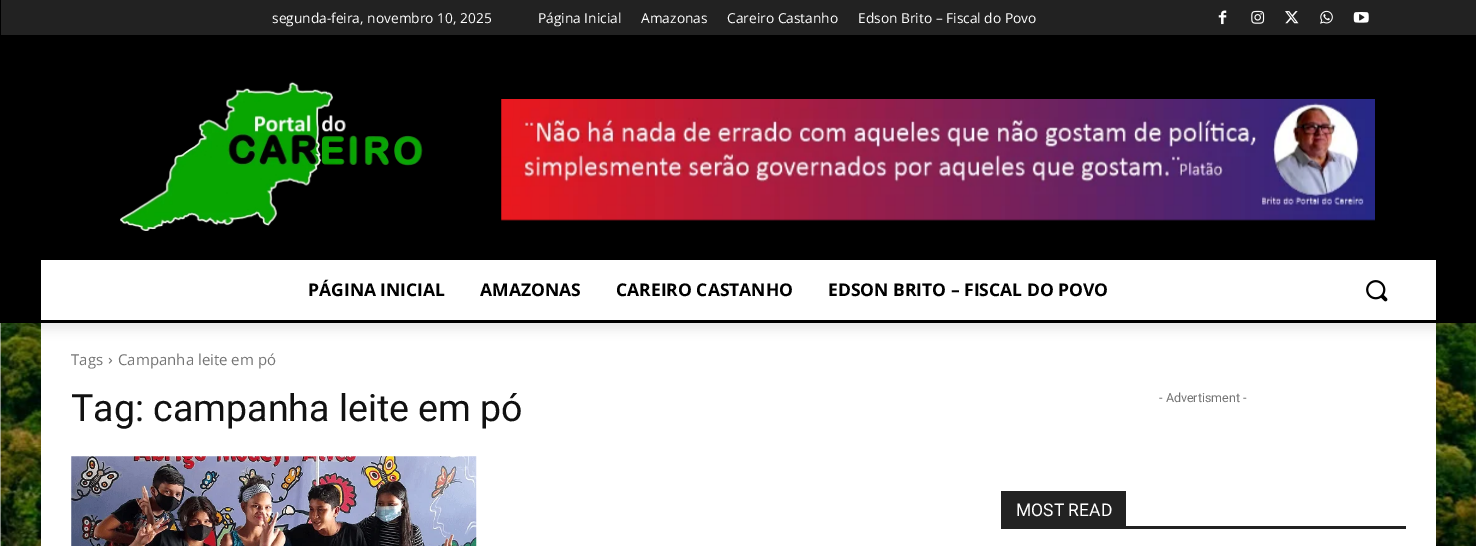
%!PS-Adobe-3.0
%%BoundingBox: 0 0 1476 546
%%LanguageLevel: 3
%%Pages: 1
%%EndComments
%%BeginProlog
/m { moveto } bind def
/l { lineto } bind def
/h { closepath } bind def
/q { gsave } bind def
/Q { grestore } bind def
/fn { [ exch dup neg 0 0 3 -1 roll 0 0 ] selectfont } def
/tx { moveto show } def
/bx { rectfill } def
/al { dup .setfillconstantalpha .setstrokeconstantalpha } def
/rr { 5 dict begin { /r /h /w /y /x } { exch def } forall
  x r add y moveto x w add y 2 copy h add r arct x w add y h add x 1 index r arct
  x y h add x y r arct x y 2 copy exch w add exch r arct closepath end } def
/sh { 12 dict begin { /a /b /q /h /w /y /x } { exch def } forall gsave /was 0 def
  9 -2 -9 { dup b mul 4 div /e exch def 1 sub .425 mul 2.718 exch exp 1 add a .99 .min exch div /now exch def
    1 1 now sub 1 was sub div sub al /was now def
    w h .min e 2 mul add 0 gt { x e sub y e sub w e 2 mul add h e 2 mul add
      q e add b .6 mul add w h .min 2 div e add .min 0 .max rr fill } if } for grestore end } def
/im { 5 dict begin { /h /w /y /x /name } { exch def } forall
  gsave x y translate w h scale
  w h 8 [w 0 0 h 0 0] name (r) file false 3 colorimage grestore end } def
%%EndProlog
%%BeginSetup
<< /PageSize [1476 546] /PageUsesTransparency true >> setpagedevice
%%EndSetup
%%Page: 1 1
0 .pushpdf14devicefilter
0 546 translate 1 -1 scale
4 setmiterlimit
1 setgray
0 0 1476 546 bx
0 setgray
0 0 1476 323 bx
0.133 setgray
1 0 1475 35 bx
(image0.raw) 1218 10 9 15 im
(image1.raw) 1251 10 14 14 im
(image2.raw) 1285 11 14 13 im
(image3.raw) 1320 10 13 14 im
(image4.raw) 1353 12 16 11 im
(image5.raw) 120 81 303 150 im
(image6.raw) 501 99 874 122 im
1 setgray
41 260 1395 60 bx
(image10.raw) 0 323 1476 223 im
41 323 1395 223 bx
q
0 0 m 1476 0 l 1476 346 l 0 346 l h 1 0 m 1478 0 l 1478 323 l 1 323 l h eoclip newpath
0 setgray
1 8 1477 322 0 5 0.08 sh
Q
/OpenSans-Regular 13.75 fn
(segunda-feira, novembro 10, 2025) 272 23 tx
(Página Inicial) 538 23 tx
(Amazonas) 641 23 tx
(Careiro Castanho) 727 23 tx
(Edson Brito – Fiscal do Povo) 858 23 tx
/OpenSans-Bold 17.5 fn
0 setgray
(PÁGINA INICIAL) 308 296 tx
(AMAZONAS) 480 296 tx
(CAREIRO CASTANHO) 616 296 tx
(EDSON BRITO – FISCAL DO POVO) 828 296 tx
(image7.raw) 1366 280 22 22 im
/OpenSans-Regular 15 fn
0.455 setgray
(Tags) 71 365 tx
(image8.raw) 108 357 5 7 im
(Campanha leite em pó) 118 365 tx
/Roboto-Regular 37.5 fn
0.067 setgray
(Tag: campanha leite em pó) 71 421 tx
(image9.raw) 71 456 406 90 im
/Roboto-Regular 12.5 fn
0.455 setgray
(- Advertisment -) 1159 402 tx
0.133 setgray
1001 526 405 3 bx
1001 491 125 35 bx
/Roboto-Regular 17.5 fn
1 setgray
(MOST READ) 1016 516 tx
.poppdf14devicefilter showpage
%%EOF
